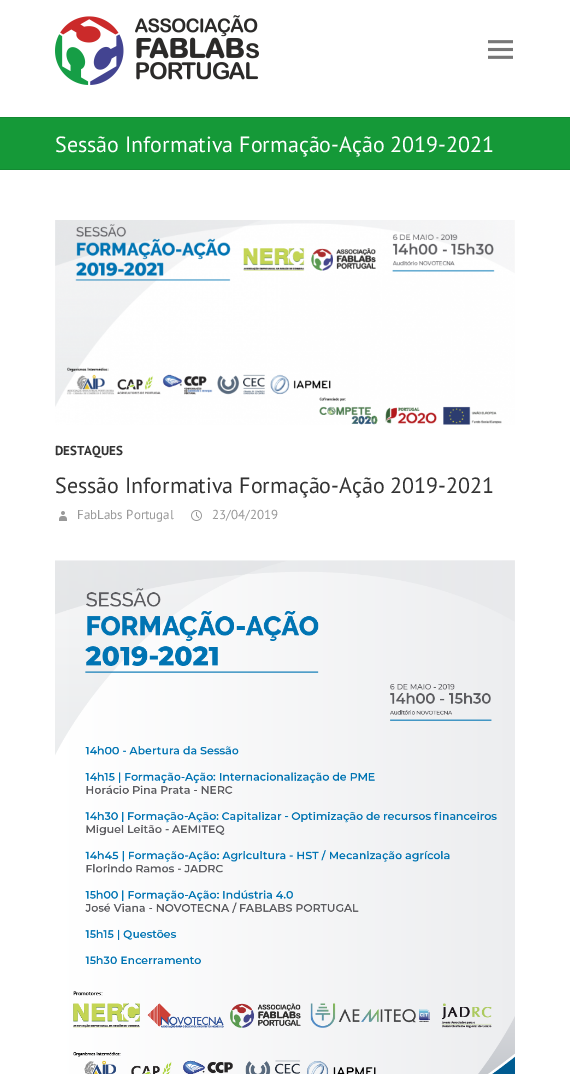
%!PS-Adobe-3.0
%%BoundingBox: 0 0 570 1074
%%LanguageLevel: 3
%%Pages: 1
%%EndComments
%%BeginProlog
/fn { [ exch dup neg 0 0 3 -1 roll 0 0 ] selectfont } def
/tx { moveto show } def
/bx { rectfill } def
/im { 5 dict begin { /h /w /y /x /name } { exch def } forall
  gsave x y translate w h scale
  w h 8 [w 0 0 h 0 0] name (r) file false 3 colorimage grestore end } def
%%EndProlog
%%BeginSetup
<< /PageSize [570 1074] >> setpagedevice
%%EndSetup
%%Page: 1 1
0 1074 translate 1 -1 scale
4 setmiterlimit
1 setgray
0 0 570 1074 bx
(image0.raw) 55 15 204 70 im
(image1.raw) 488 40 25 19 im
0.082 0.6 0.22 setrgbcolor
0 118 570 51 bx
0.075 0.541 0.196 setrgbcolor
0 117 570 1 bx
0 169 570 1 bx
/PTSans-Regular 22 fn
1 setgray
(Sessão Informativa Formação-Ação 2019-2021) 55 152 tx
(image2.raw) 55 220 460 205 im
/PTSans-Bold 13 fn
0.2 setgray
(DESTAQUES) 55 455 tx
/PTSans-Regular 22 fn
(Sessão Informativa Formação-Ação 2019-2021) 55 493 tx
(image3.raw) 59 511 8 10 im
/PTSans-Regular 13 fn
0.6 setgray
(FabLabs Portugal) 77 519 tx
(image4.raw) 191 510 11 11 im
(23/04/2019) 212 519 tx
(image5.raw) 55 560 460 514 im
showpage
%%EOF
